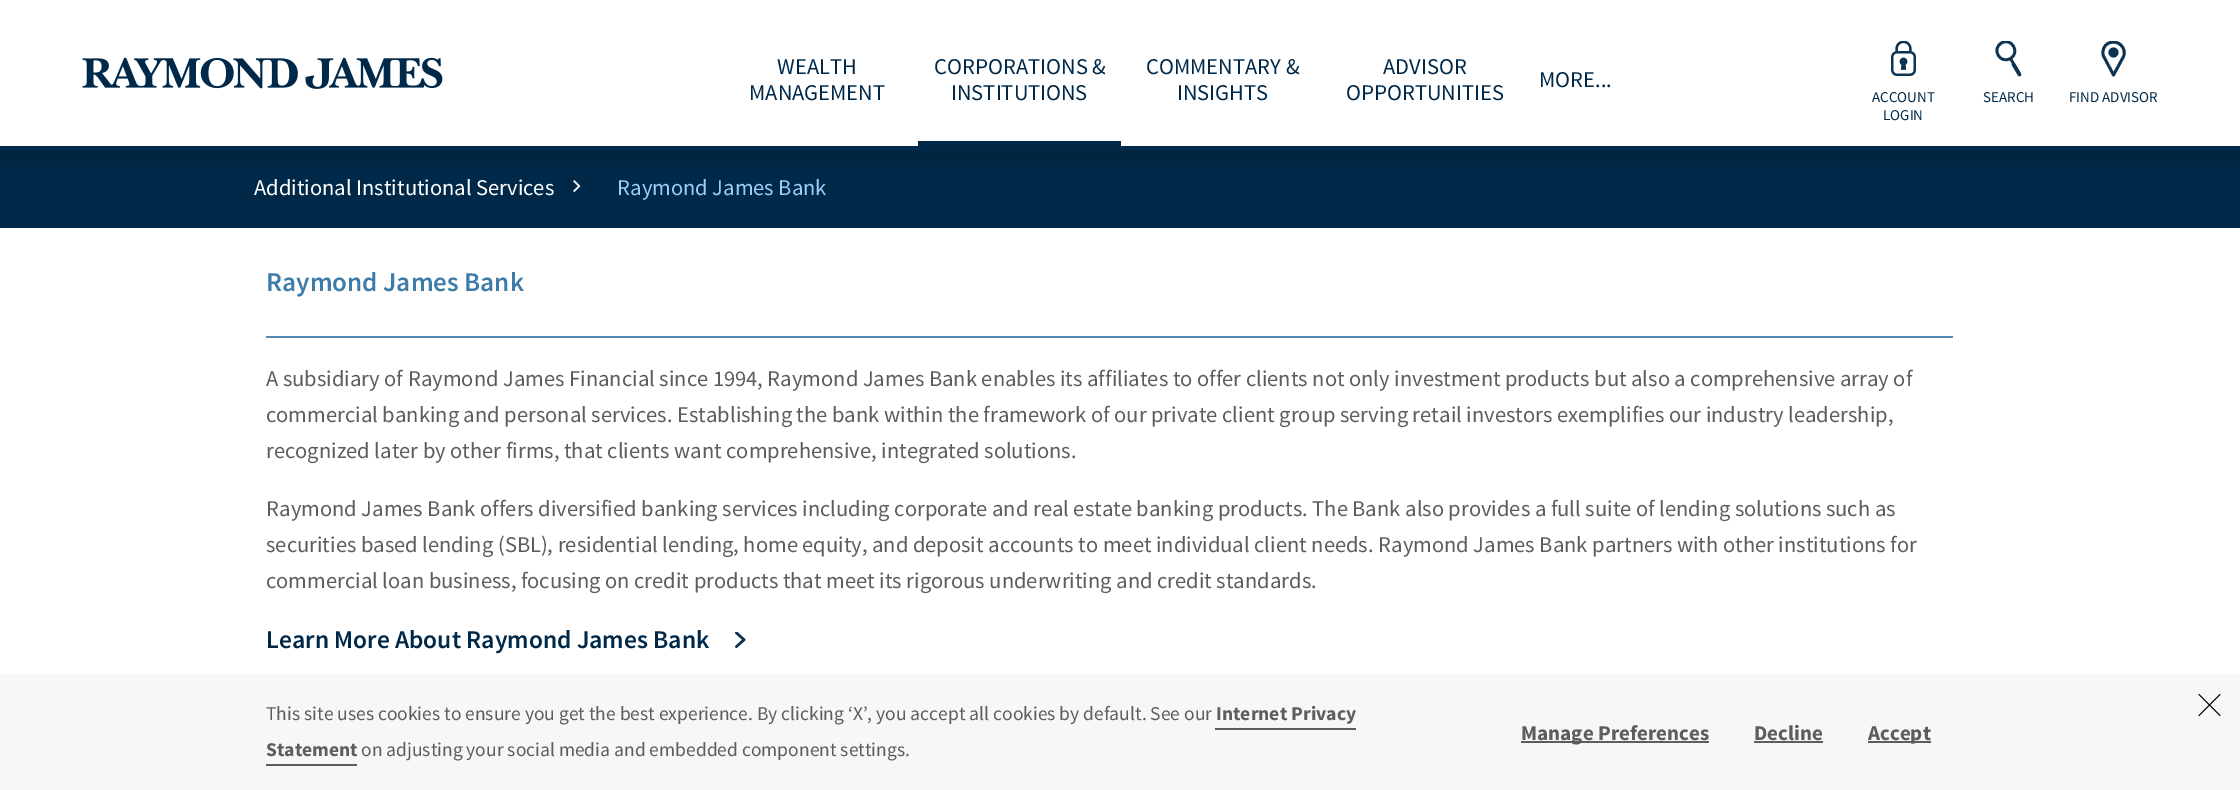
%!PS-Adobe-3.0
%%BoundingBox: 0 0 2240 790
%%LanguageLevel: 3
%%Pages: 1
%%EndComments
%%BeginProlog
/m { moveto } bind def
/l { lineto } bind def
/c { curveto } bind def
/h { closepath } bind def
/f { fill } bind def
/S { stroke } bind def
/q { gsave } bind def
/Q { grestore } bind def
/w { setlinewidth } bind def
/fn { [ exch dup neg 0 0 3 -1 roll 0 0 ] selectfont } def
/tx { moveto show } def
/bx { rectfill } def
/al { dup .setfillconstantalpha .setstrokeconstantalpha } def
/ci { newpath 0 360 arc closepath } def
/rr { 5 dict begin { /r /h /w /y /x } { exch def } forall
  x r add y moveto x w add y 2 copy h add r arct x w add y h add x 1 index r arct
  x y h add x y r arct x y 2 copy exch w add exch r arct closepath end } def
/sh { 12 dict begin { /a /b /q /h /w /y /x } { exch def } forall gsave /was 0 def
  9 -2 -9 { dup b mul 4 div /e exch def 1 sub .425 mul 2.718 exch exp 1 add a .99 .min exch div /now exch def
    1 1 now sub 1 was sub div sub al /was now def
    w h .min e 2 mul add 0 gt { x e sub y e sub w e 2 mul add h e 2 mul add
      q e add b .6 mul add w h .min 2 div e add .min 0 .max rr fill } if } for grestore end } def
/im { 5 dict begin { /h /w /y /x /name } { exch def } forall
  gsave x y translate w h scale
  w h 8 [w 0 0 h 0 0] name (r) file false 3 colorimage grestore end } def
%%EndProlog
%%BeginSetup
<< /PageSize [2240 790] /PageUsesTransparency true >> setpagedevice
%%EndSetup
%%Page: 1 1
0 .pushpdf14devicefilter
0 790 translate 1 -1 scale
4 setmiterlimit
1 setgray
0 0 2240 790 bx
0 0.161 0.286 setrgbcolor
0 151 2240 77 bx
(image2.raw) 573 180 8 12 im
q
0 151 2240 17 rectclip
0 setgray
0 8 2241 150 0 7.5 0.2 sh
Q
(image0.raw) 82 57 361 32 im
/SourceSansPro-Regular 22.5 fn
(WEALTH) 777 74 tx
(MANAGEMENT) 749 100 tx
(CORPORATIONS &) 934 74 tx
(INSTITUTIONS) 951 100 tx
(COMMENTARY &) 1146 74 tx
(INSIGHTS) 1177 100 tx
(ADVISOR) 1383 74 tx
(OPPORTUNITIES) 1346 100 tx
(MORE...) 1539 87 tx
(image1.raw) 1891 41 25 35 im
/SourceSansPro-Regular 15 fn
(ACCOUNT) 1872 102 tx
(LOGIN) 1883 120 tx
q
1991 41 36 36 rectclip
0.047 0.2 0.322 setrgbcolor
2.7 w
2001.5 43 m 2011.5 37 2020.5 52.5 2010.5 58.5 c 2000 64.5 1991 49 2001.5 43 c h S
Q
0.047 0.2 0.322 setrgbcolor
2.7 w
1 setlinecap
1 setlinejoin
2010.5 58.5 m 2018 71.5 l S
3.6 w
2013.5 64.5 m 2019.5 74.5 l S
0 0.161 0.286 setrgbcolor
(SEARCH) 1983 102 tx
q
2096 41 36 36 rectclip
0.047 0.2 0.322 setrgbcolor
2.8 w
2123 57.5 m 2128 48.5 2117.5 38 2108 43.5 c 2104 45.5 2101.5 51 2103.5 56 c 2113.5 75 l h S
Q
0.047 0.2 0.322 setrgbcolor
2113.5 52.5 5 ci f
0 0.161 0.286 setrgbcolor
(FIND ADVISOR) 2069 102 tx
0 146 2240 5 bx
918 141 203 5 bx
/SourceSansPro-Regular 22.5 fn
1 setgray
(Additional Institutional Services) 254 195 tx
0.612 0.804 0.969 setrgbcolor
(Raymond James Bank) 617 195 tx
0.329 0.537 0.714 setrgbcolor
266 336 1687 2 bx
/SourceSansPro-SemiBold 27 fn
0.239 0.486 0.663 setrgbcolor
(Raymond James Bank) 266 291 tx
/SourceSansPro-Regular 22.5 fn
0.357 0.369 0.353 setrgbcolor
(A subsidiary of Raymond James Financial since 1994, Raymond James Bank enables its affiliates to offer clients not only investment products but also a comprehensive array of) 266 386 tx
(commercial banking and personal services. Establishing the bank within the framework of our private client group serving retail investors exemplifies our industry leadership,) 266 422 tx
(recognized later by other firms, that clients want comprehensive, integrated solutions.) 266 458 tx
(Raymond James Bank offers diversified banking services including corporate and real estate banking products. The Bank also provides a full suite of lending solutions such as) 266 516 tx
(securities based lending \(SBL\), residential lending, home equity, and deposit accounts to meet individual client needs. Raymond James Bank partners with other institutions for) 266 552 tx
(commercial loan business, focusing on credit products that meet its rigorous underwriting and credit standards.) 266 588 tx
/SourceSansPro-SemiBold 25.5 fn
0 0.161 0.286 setrgbcolor
(Learn More About Raymond James Bank) 266 648 tx
(image3.raw) 735 632 11 16 im
0.961 0.969 0.976 setrgbcolor
0 674 2240 116 bx
/SourceSansPro-Regular 19.5 fn
0.357 0.369 0.353 setrgbcolor
(This site uses cookies to ensure you get the best experience. By clicking ‘X’, you accept all cookies by default. See our) 266 720 tx
/SourceSansPro-Bold 19.5 fn
(Internet Privacy) 1216 720 tx
1215 728 141 2 bx
(Statement) 266 756 tx
266 764 91 2 bx
/SourceSansPro-Regular 19.5 fn
(on adjusting your social media and embedded component settings.) 361 756 tx
1521 741 188 2 bx
/SourceSansPro-Bold 21 fn
(Manage Preferences) 1521 740 tx
(Decline) 1754 740 tx
1754 741 69 2 bx
1868 741 63 2 bx
(Accept) 1868 740 tx
(image4.raw) 2198 693 23 24 im
.poppdf14devicefilter showpage
%%EOF
